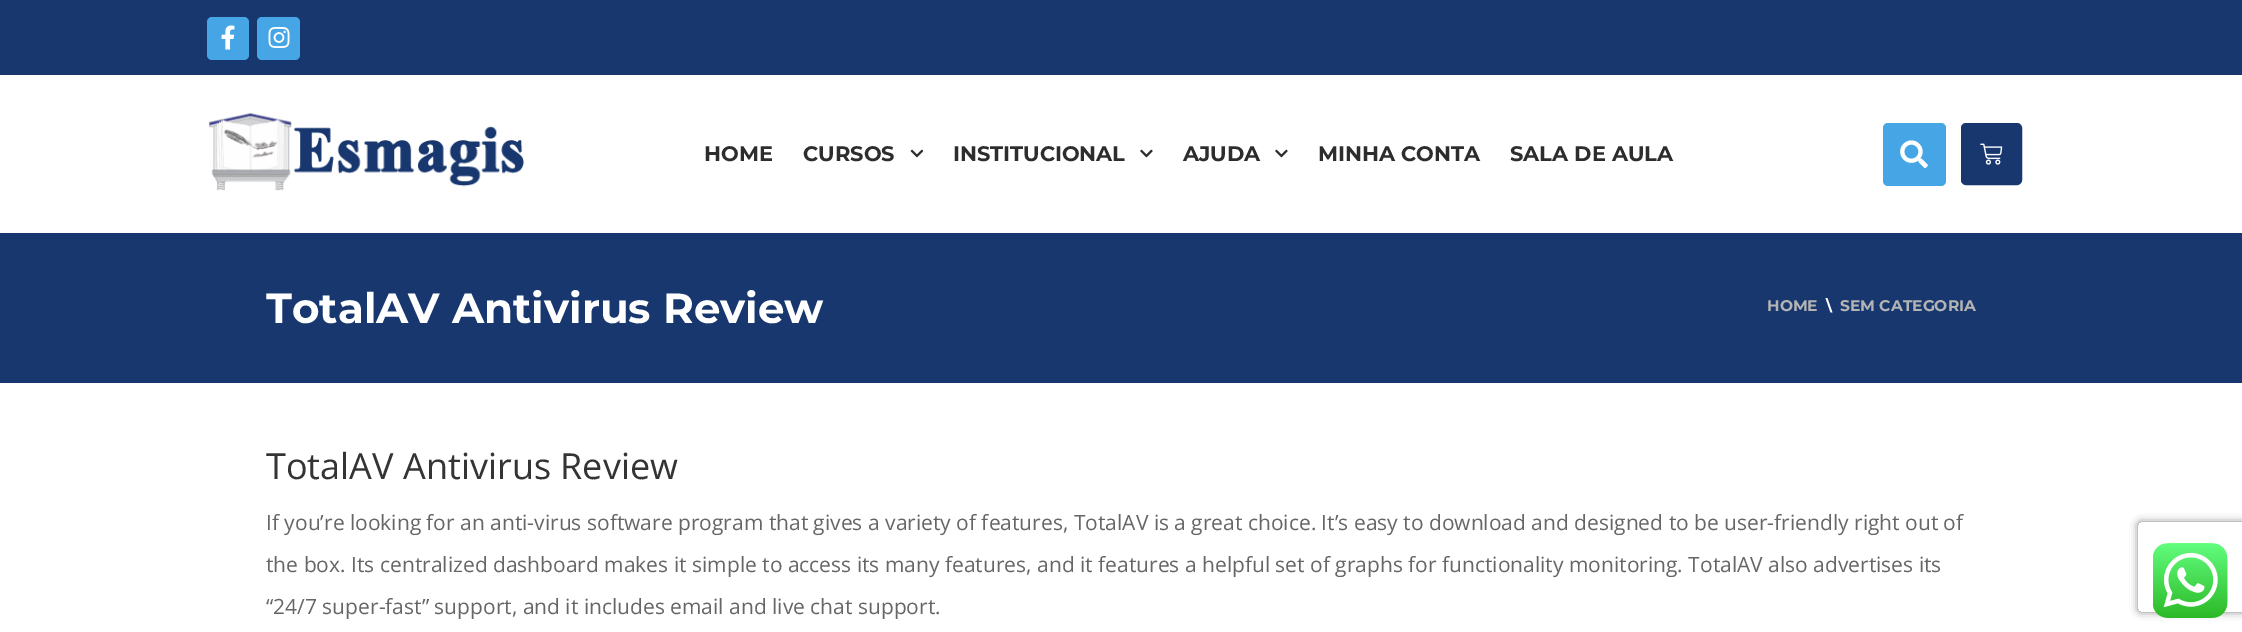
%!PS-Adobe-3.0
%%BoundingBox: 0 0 2242 632
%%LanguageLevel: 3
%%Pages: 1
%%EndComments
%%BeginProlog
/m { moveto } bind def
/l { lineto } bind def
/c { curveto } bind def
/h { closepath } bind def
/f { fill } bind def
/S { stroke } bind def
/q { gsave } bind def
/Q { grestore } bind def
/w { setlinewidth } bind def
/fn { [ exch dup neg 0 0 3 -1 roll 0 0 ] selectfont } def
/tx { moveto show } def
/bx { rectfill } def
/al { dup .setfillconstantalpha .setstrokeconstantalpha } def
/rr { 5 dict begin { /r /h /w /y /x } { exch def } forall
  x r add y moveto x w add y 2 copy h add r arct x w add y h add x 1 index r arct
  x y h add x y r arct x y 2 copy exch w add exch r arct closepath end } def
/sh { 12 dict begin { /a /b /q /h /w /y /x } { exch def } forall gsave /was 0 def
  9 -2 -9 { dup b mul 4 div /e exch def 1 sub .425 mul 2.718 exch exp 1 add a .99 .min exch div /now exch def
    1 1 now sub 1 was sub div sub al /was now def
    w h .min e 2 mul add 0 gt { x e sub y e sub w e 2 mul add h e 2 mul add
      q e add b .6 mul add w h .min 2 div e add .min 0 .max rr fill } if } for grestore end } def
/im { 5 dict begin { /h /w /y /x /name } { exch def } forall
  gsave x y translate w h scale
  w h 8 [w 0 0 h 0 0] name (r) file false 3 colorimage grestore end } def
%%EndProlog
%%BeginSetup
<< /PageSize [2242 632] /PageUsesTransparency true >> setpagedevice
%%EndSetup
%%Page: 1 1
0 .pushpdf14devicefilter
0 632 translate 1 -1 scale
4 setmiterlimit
1 setgray
0 0 2242 632 bx
0.09 0.216 0.431 setrgbcolor
0 0 2242 75 bx
0.275 0.647 0.898 setrgbcolor
207 17 42 43 5 rr f
(image0.raw) 221 25 14 25 im
257 17 43 43 5 rr f
(image1.raw) 268 26 22 22 im
(image2.raw) 209 113 316 78 im
/Montserrat-Bold 21 fn
0.176 setgray
(HOME) 704 161 tx
(CURSOS) 803 161 tx
(image3.raw) 910 149 14 9 im
(INSTITUCIONAL) 953 161 tx
(image4.raw) 1140 149 13 9 im
(AJUDA) 1183 161 tx
(image4.raw) 1275 149 13 9 im
(MINHA CONTA) 1318 161 tx
(SALA DE AULA) 1510 161 tx
0.275 0.647 0.898 setrgbcolor
1883 123 63 63 5 rr f
(image5.raw) 1900 140 28 29 im
0.09 0.216 0.431 setrgbcolor
1962 124 59 60 4 rr q f Q
2 w
S
(image6.raw) 1980 143 23 22 im
0 233 2242 150 bx
/Montserrat-Bold 42 fn
1 setgray
(TotalAV Antivirus Review) 266 323 tx
/Montserrat-Bold 15.5 fn
0.71 0.706 0.706 setrgbcolor
(HOME) 1767 311 tx
1 setgray
(\\) 1826 311 tx
0.71 0.706 0.706 setrgbcolor
(SEM CATEGORIA) 1840 311 tx
/OpenSans-Regular 36 fn
0.204 setgray
(TotalAV Antivirus Review) 266 479 tx
/OpenSans-Regular 21 fn
0.4 setgray
(If you’re looking for an anti-virus software program that gives a variety of features, TotalAV is a great choice. It’s easy to download and designed to be user-friendly right out of) 266 530 tx
(the box. Its centralized dashboard makes it simple to access its many features, and it features a helpful set of graphs for functionality monitoring. TotalAV also advertises its) 266 572 tx
(“24/7 super-fast” support, and it includes email and live chat support.) 266 614 tx
q
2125 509 m 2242 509 l 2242 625 l 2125 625 l h 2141 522 m 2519 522 l 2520.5 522 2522 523.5 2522 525 c 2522 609 l 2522 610.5 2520.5 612 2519 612 c 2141 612 l 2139.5 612 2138 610.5 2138 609 c 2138 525 l 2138 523.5 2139.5 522 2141 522 c h eoclip newpath
0.502 setgray
2138 522 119 90 3 4 1 sh
Q
(image7.raw) 2153 543 75 75 im
.poppdf14devicefilter showpage
%%EOF
